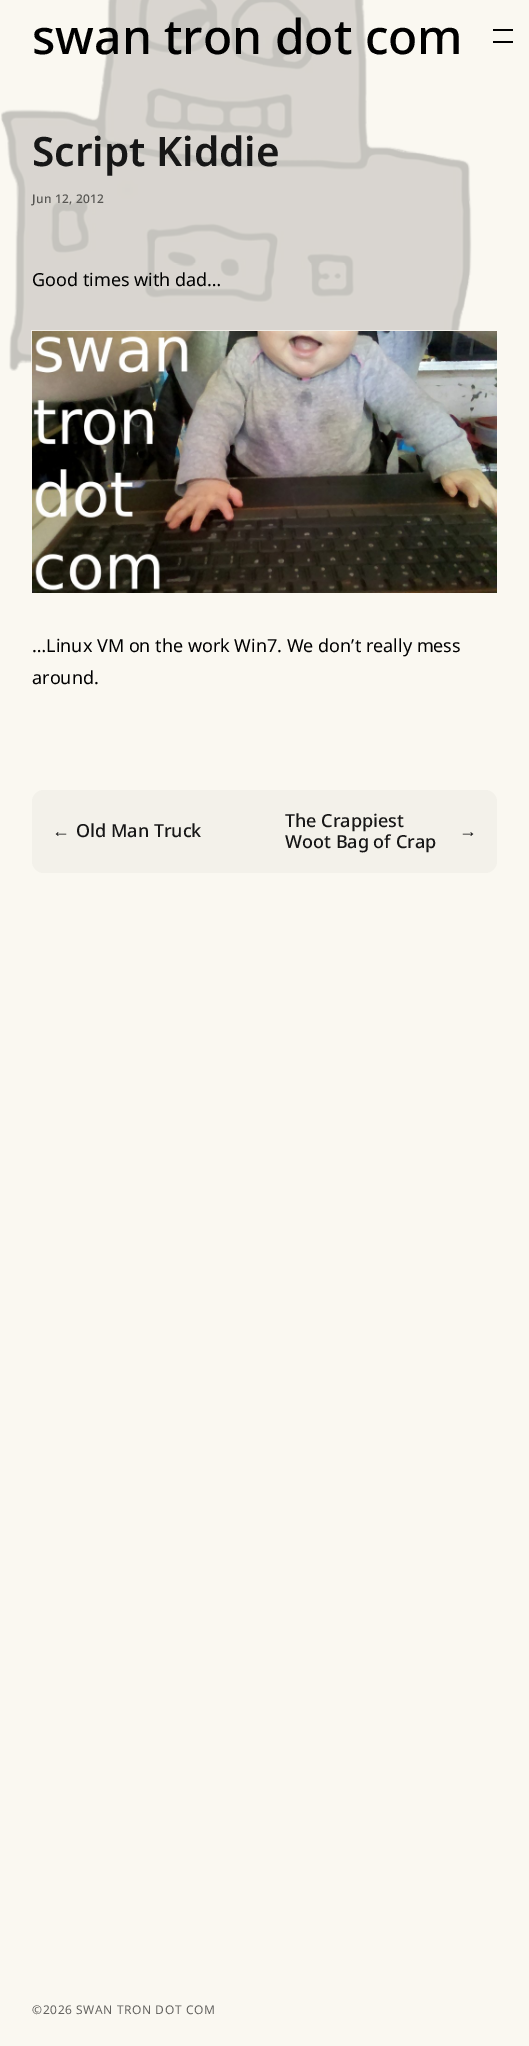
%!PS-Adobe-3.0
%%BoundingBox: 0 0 529 2046
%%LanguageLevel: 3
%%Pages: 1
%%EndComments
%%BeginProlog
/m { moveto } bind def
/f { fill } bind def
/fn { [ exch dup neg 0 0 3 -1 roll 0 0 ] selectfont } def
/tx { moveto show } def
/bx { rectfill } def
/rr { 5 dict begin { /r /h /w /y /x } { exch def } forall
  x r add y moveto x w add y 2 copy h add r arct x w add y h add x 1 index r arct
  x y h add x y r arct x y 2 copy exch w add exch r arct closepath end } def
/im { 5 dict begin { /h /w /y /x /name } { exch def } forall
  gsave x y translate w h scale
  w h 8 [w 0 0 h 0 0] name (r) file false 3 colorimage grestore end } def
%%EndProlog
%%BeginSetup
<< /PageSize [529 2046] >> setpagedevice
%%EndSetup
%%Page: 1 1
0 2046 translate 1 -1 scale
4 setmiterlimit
0.98 0.973 0.945 setrgbcolor
0 0 529 2046 bx
(image0.raw) 0 0 472 372 im
/NotoSans-Medium 48 fn
0 setgray
(swan tron dot com) 32 54 tx
493 29 20 2 bx
493 41 20 2 bx
/NotoSans-SemiBold 40.5 fn
0.09 setgray
(Script Kiddie) 32 166 tx
/NotoSans-Medium 12 fn
0.337 0.333 0.322 setrgbcolor
32 203 m 0.25 0 (Jun 12, 2012) ashow
/NotoSans-Regular 18 fn
0 setgray
(Good times with dad…) 32 286 tx
(image1.raw) 31 330 466 263 im
(…Linux VM on the work Win7. We don’t really mess) 32 652 tx
(around.) 32 684 tx
0.953 0.945 0.918 setrgbcolor
32 790 465 83 12 rr f
/LiberationSans-Regular 18 fn
0.09 setgray
(←) 52 837 tx
/NotoSans-Medium 18 fn
(Old Man Truck) 76 837 tx
(The Crappiest) 285 827 tx
(Woot Bag of Crap) 285 848 tx
/LiberationSans-Regular 18 fn
(→) 459 837 tx
/NotoSans-Regular 12 fn
0.392 0.388 0.376 setrgbcolor
32 2014 m 0.6 0 (©2026 SWAN TRON DOT COM) ashow
showpage
%%EOF
